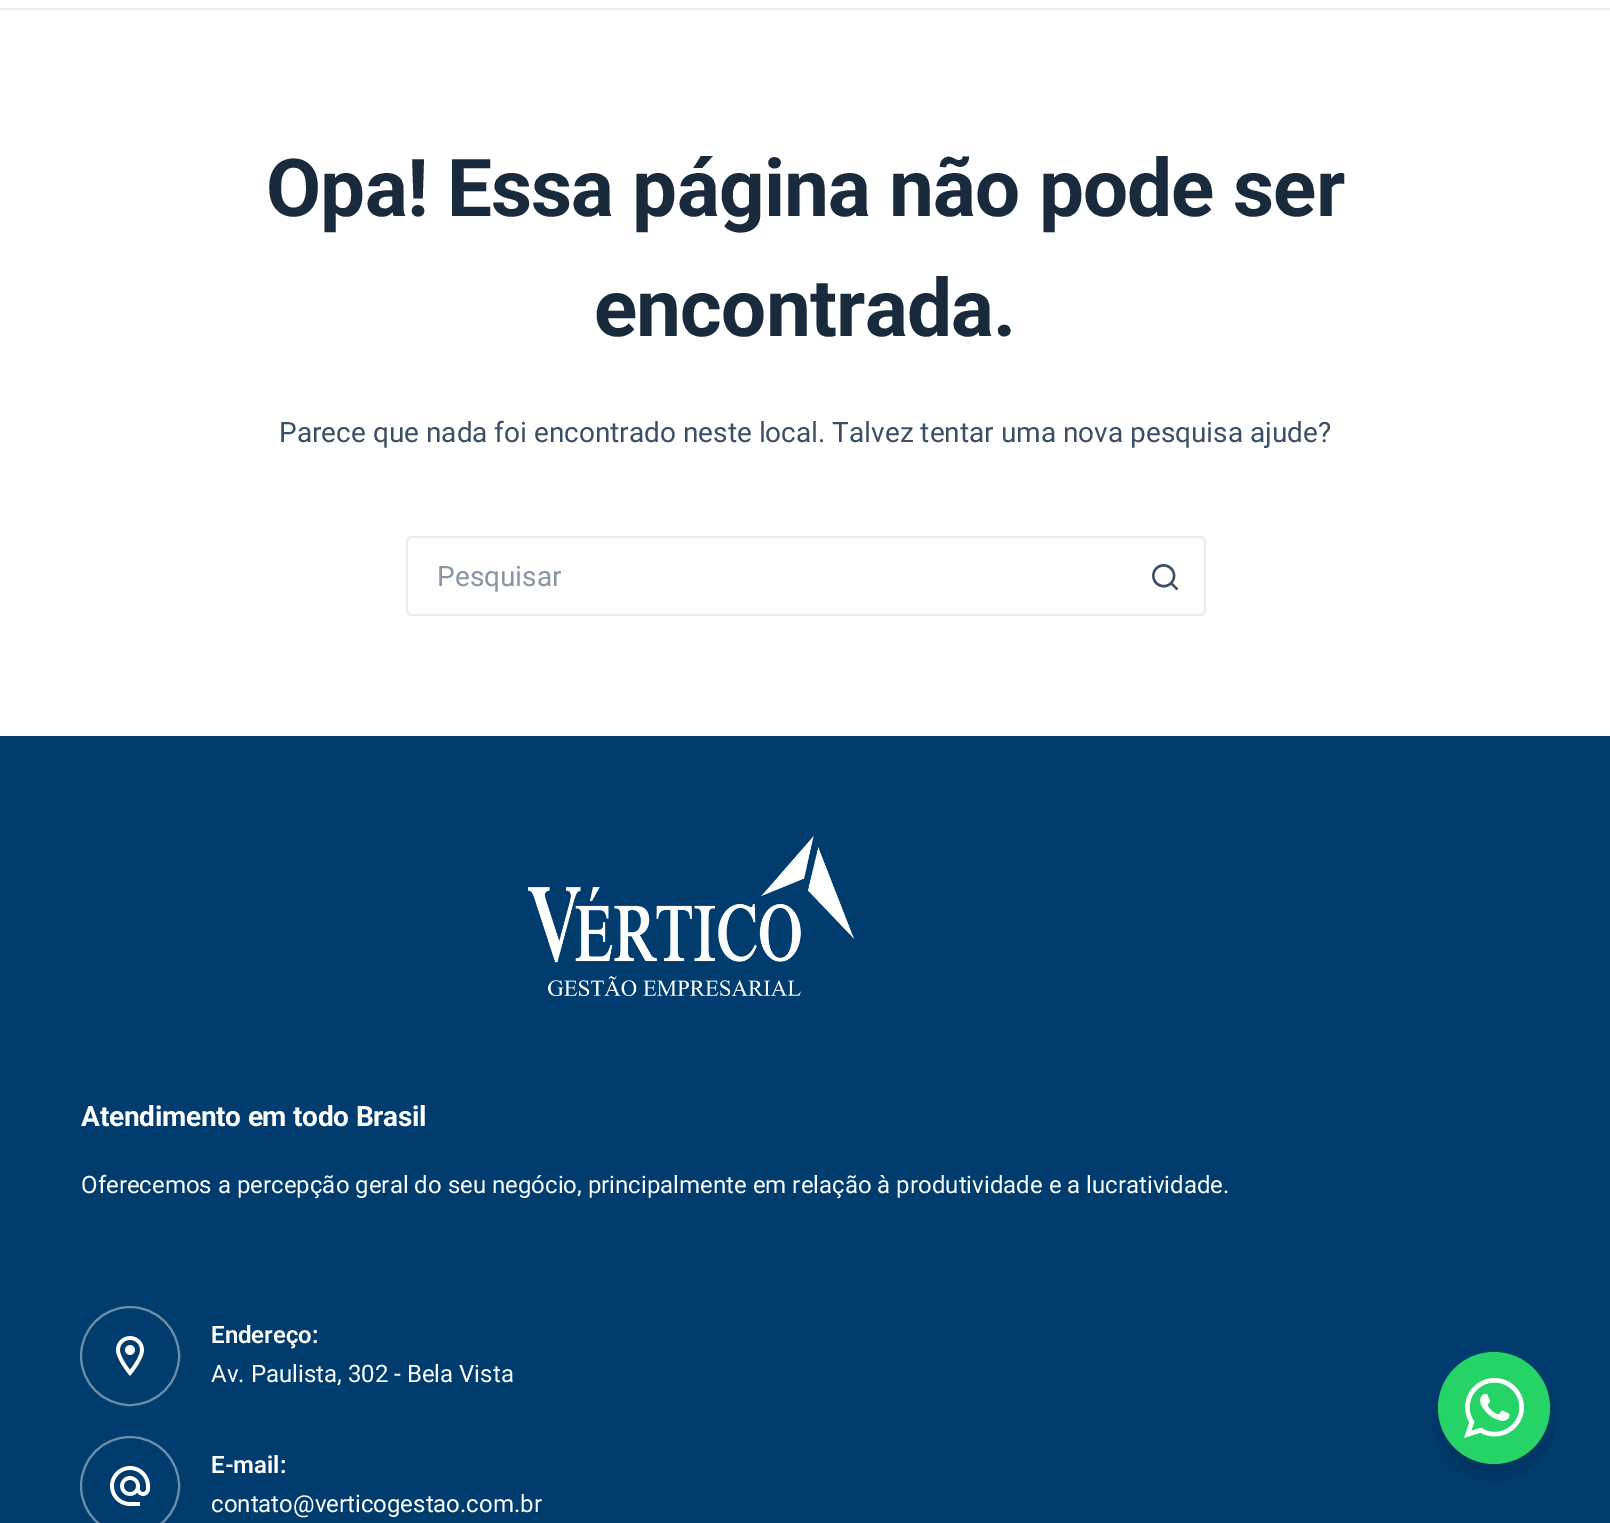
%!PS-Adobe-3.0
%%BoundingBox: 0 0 1610 1523
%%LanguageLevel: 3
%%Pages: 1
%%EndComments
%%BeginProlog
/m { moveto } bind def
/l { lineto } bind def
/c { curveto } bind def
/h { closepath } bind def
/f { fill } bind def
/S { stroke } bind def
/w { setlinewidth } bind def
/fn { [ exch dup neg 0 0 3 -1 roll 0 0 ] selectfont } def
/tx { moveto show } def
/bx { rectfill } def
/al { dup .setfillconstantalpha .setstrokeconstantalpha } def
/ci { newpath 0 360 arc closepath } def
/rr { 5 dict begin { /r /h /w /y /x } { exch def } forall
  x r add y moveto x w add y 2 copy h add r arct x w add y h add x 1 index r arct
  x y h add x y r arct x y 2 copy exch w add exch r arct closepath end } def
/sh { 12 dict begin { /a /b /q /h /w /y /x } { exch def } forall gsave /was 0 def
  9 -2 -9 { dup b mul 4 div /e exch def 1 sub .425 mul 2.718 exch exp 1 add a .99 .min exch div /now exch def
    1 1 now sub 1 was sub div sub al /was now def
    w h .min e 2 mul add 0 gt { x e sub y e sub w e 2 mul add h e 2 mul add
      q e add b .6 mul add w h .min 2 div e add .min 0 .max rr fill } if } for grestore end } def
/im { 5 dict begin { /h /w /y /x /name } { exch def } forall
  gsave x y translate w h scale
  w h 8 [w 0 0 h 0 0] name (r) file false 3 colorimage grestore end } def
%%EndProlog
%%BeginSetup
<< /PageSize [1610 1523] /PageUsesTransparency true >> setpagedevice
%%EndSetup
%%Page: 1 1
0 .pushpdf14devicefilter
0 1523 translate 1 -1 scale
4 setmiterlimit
1 setgray
0 0 1610 1523 bx
0.937 0.925 0.918 setrgbcolor
0 8 1610 2 bx
/Roboto-Bold 80 fn
0.098 0.165 0.239 setrgbcolor
266 216 m -0.8 0 (Opa! Essa página não pode ser) ashow
594 336 m -0.8 0 (encontrada.) ashow
/Roboto-Regular 28 fn
0.227 0.31 0.4 setrgbcolor
(Parece que nada foi encontrado neste local. Talvez tentar uma nova pesquisa ajude?) 279 442 tx
0.902 0.925 0.945 setrgbcolor
412 536 m 1126 536 l 1126 616 l 412 616 l 409 616 406 613 406 610 c 406 542 l 406 539 409 536 412 536 c h 412 538 m 1126 538 l 1126 614 l 412 614 l 410 614 408 612 408 610 c 408 542 l 408 540 410 538 412 538 c h eofill
0.537 0.584 0.639 setrgbcolor
(Pesquisar) 437 586 tx
0.902 0.925 0.945 setrgbcolor
1126 536 m 1200 536 l 1203 536 1206 539 1206 542 c 1206 610 l 1206 613 1203 616 1200 616 c 1126 616 l h 1126 538 m 1200 538 l 1202 538 1204 540 1204 542 c 1204 610 l 1204 612 1202 614 1200 614 c 1126 614 l h eofill
(image0.raw) 1152 564 26 26 im
0 0.239 0.431 setrgbcolor
0 736 1610 787 bx
(image1.raw) 528 836 326 160 im
/Roboto-Bold 28 fn
1 setgray
81 1126 m -0.25 0 (Atendimento em todo Brasil) ashow
/Roboto-Regular 24 fn
(Oferecemos a percepção geral do seu negócio, principalmente em relação à produtividade e a lucratividade.) 81 1193 tx
0.427 0.557 0.663 setrgbcolor
2 w
130 1356 49 ci S
(image2.raw) 116 1336 28 40 im
/Roboto-SemiBold 24 fn
1 setgray
(Endereço:) 211 1343 tx
/Roboto-Regular 24 fn
(Av. Paulista, 302 - Bela Vista) 211 1382 tx
0.427 0.557 0.663 setrgbcolor
130 1486 49 ci S
(image3.raw) 110 1466 40 40 im
/Roboto-SemiBold 24 fn
1 setgray
(E-mail:) 211 1473 tx
/Roboto-Regular 24 fn
(contato@verticogestao.com.br) 211 1512 tx
0 setgray
1434 1360 120 120 60 8 0.14 sh
0.145 0.827 0.4 setrgbcolor
1494 1408 56 ci f
(image4.raw) 1464 1378 60 60 im
.poppdf14devicefilter showpage
%%EOF
